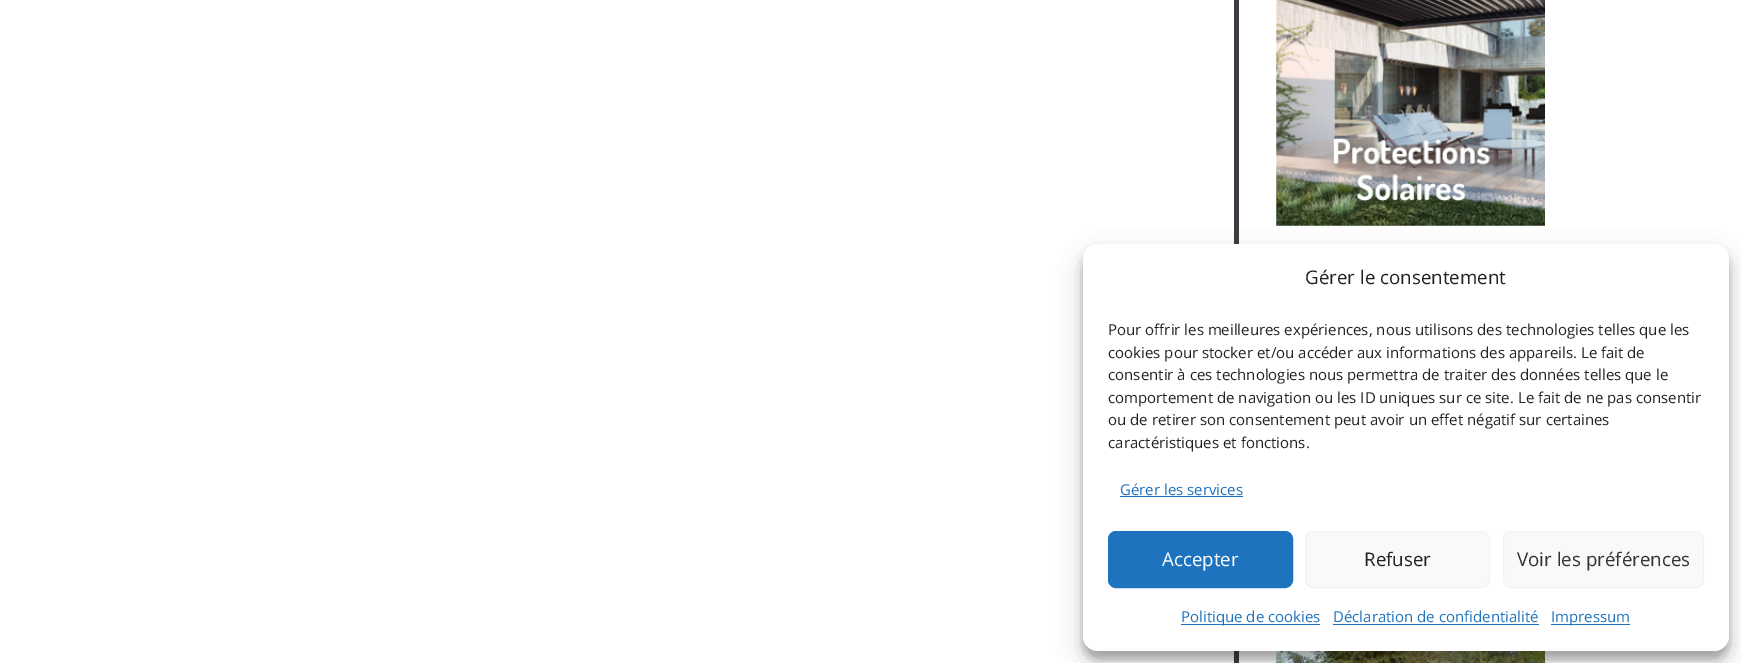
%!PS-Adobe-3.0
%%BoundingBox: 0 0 1741 663
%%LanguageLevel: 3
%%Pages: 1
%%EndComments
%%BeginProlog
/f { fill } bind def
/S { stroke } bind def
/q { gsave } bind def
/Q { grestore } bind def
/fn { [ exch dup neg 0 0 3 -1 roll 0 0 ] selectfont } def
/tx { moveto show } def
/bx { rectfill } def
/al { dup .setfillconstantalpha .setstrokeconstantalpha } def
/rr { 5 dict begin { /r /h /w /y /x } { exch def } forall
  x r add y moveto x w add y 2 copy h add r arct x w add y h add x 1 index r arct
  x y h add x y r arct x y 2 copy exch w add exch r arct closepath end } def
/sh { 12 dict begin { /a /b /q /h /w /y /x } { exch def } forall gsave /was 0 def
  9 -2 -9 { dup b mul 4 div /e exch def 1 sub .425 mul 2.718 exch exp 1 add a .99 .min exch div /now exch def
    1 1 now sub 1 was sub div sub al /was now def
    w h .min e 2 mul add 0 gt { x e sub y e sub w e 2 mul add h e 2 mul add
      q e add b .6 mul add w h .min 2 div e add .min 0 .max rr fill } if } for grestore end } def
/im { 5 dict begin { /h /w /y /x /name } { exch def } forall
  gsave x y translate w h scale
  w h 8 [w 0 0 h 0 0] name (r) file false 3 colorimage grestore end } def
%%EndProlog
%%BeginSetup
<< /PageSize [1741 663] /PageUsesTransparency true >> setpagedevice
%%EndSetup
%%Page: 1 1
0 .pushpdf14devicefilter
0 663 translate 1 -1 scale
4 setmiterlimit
1 setgray
0 0 1741 663 bx
0.227 0.243 0.259 setrgbcolor
1234 0 5 663 bx
(image0.raw) 1276 0 269 226 im
(image1.raw) 1276 651 269 12 im
0 setgray
1083 251 646 408 15 4 0.23 sh
1083 256 646 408 15 12.5 0.19 sh
1 setgray
1083 244 646 407 15 rr f
/OpenSans-Regular 18.75 fn
0.133 setgray
(Gérer le consentement) 1305 284 tx
/OpenSans-Regular 15 fn
(Pour offrir les meilleures expériences, nous utilisons des technologies telles que les) 1108 335 tx
(cookies pour stocker et/ou accéder aux informations des appareils. Le fait de) 1108 358 tx
(consentir à ces technologies nous permettra de traiter des données telles que le) 1108 380 tx
(comportement de navigation ou les ID uniques sur ce site. Le fait de ne pas consentir) 1108 403 tx
(ou de retirer son consentement peut avoir un effet négatif sur certaines) 1108 425 tx
(caractéristiques et fonctions.) 1108 448 tx
0.118 0.451 0.745 setrgbcolor
(Gérer les services) 1120 495 tx
1120 496 123 1 bx
1108.5 531.5 184 56 7.5 rr q f Q
S
/OpenSans-Regular 18.75 fn
1 setgray
(Accepter) 1162 566 tx
0.976 setgray
1305.5 531.5 184 56 7.5 rr q f Q
0.949 setgray
S
0.133 setgray
(Refuser) 1364 566 tx
0.976 setgray
1503.5 531.5 200 56 7.5 rr q f Q
0.949 setgray
S
0.2 setgray
(Voir les préférences) 1517 566 tx
0.118 0.451 0.745 setrgbcolor
1181 624 139 1 bx
/OpenSans-Regular 15 fn
(Politique de cookies) 1181 622 tx
(Déclaration de confidentialité) 1333 622 tx
1333 624 206 1 bx
1551 624 79 1 bx
(Impressum) 1551 622 tx
.poppdf14devicefilter showpage
%%EOF
